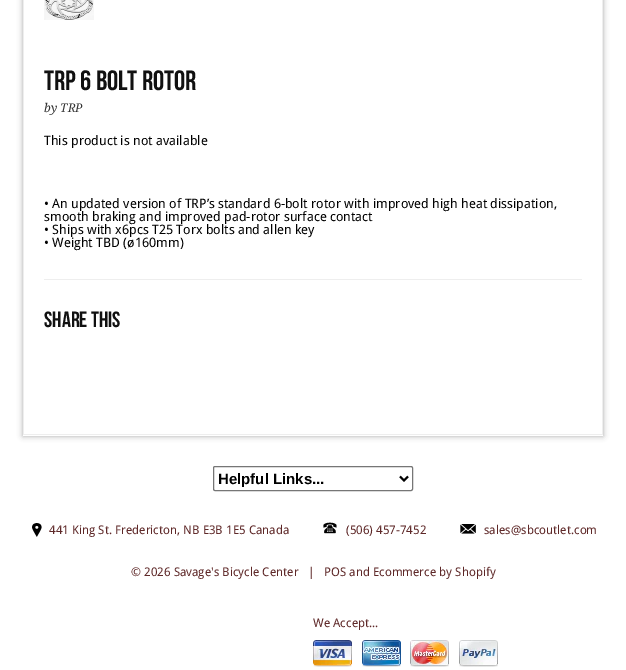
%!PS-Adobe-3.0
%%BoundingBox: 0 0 626 670
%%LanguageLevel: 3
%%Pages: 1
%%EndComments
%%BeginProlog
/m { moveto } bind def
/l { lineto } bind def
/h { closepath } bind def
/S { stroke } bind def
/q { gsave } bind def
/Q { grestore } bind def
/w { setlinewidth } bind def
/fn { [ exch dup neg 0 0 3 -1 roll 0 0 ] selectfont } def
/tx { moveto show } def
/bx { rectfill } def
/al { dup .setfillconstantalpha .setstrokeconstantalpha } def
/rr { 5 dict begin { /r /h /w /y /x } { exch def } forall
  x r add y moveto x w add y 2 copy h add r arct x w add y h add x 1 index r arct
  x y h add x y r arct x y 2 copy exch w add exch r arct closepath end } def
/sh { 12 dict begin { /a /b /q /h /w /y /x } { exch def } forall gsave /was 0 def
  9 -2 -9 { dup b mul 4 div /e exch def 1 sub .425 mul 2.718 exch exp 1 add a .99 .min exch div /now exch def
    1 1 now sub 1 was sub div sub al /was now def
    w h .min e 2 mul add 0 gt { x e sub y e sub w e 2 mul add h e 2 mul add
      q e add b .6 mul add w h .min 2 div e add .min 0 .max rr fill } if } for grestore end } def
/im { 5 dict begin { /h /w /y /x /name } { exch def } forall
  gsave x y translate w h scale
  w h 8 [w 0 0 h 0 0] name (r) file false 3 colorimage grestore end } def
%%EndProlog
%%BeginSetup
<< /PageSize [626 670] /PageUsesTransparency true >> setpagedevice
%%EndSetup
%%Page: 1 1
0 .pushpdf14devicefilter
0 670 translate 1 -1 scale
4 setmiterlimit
1 setgray
0 0 626 670 bx
q
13 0 m 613 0 l 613 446 l 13 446 l h 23 -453 m 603 -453 l 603 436 l 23 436 l h eoclip newpath
0.651 setgray
23 -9 580 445 0 3 1 sh
Q
0.933 setgray
602 0 1 435 bx
23 434 580 1 bx
23 0 1 435 bx
(image0.raw) 44 0 50 20 im
/BebasNeue-Regular 28 fn
0.067 setgray
(TRP 6 Bolt Rotor) 44 90 tx
/DroidSerif-Italic 12 fn
0.2 setgray
(by TRP) 44 112 tx
/DroidSans-Regular 13 fn
0 setgray
(This product is not available) 44 145 tx
(• An updated version of TRP’s standard 6-bolt rotor with improved high heat dissipation,) 44 208 tx
(smooth braking and improved pad-rotor surface contact) 44 221 tx
(• Ships with x6pcs T25 Torx bolts and allen key) 44 234 tx
(• Weight TBD \(ø160mm\)) 44 247 tx
0.933 setgray
44 279 538 1 bx
/BebasNeue-Regular 22 fn
0.067 setgray
(Share This) 44 327 tx
0.463 setgray
213.5 466.5 199 24 1.5 rr S
0 setgray
2 w
400 476.5 m 404 480.5 l 408 476.5 l S
/LiberationSans-Bold 15 fn
(Helpful Links...) 218 484 tx
(image1.raw) 32 523 10 14 im
/DroidSans-Regular 12 fn
0.369 0.157 0.157 setrgbcolor
(441 King St. Fredericton, NB E3B 1E5 Canada) 49 534 tx
(image2.raw) 323 522 14 12 im
(\(506\) 457-7452) 346 534 tx
(image3.raw) 460 524 16 10 im
(sales@sbcoutlet.com) 484 534 tx
(© 2026 Savage's Bicycle Center) 131 576 tx
(|) 308 576 tx
(POS and Ecommerce by Shopify) 324 576 tx
(We Accept...) 313 627 tx
(image4.raw) 313 640 39 27 im
(image5.raw) 362 640 39 27 im
(image6.raw) 410 640 39 27 im
(image7.raw) 459 640 39 27 im
.poppdf14devicefilter showpage
%%EOF
